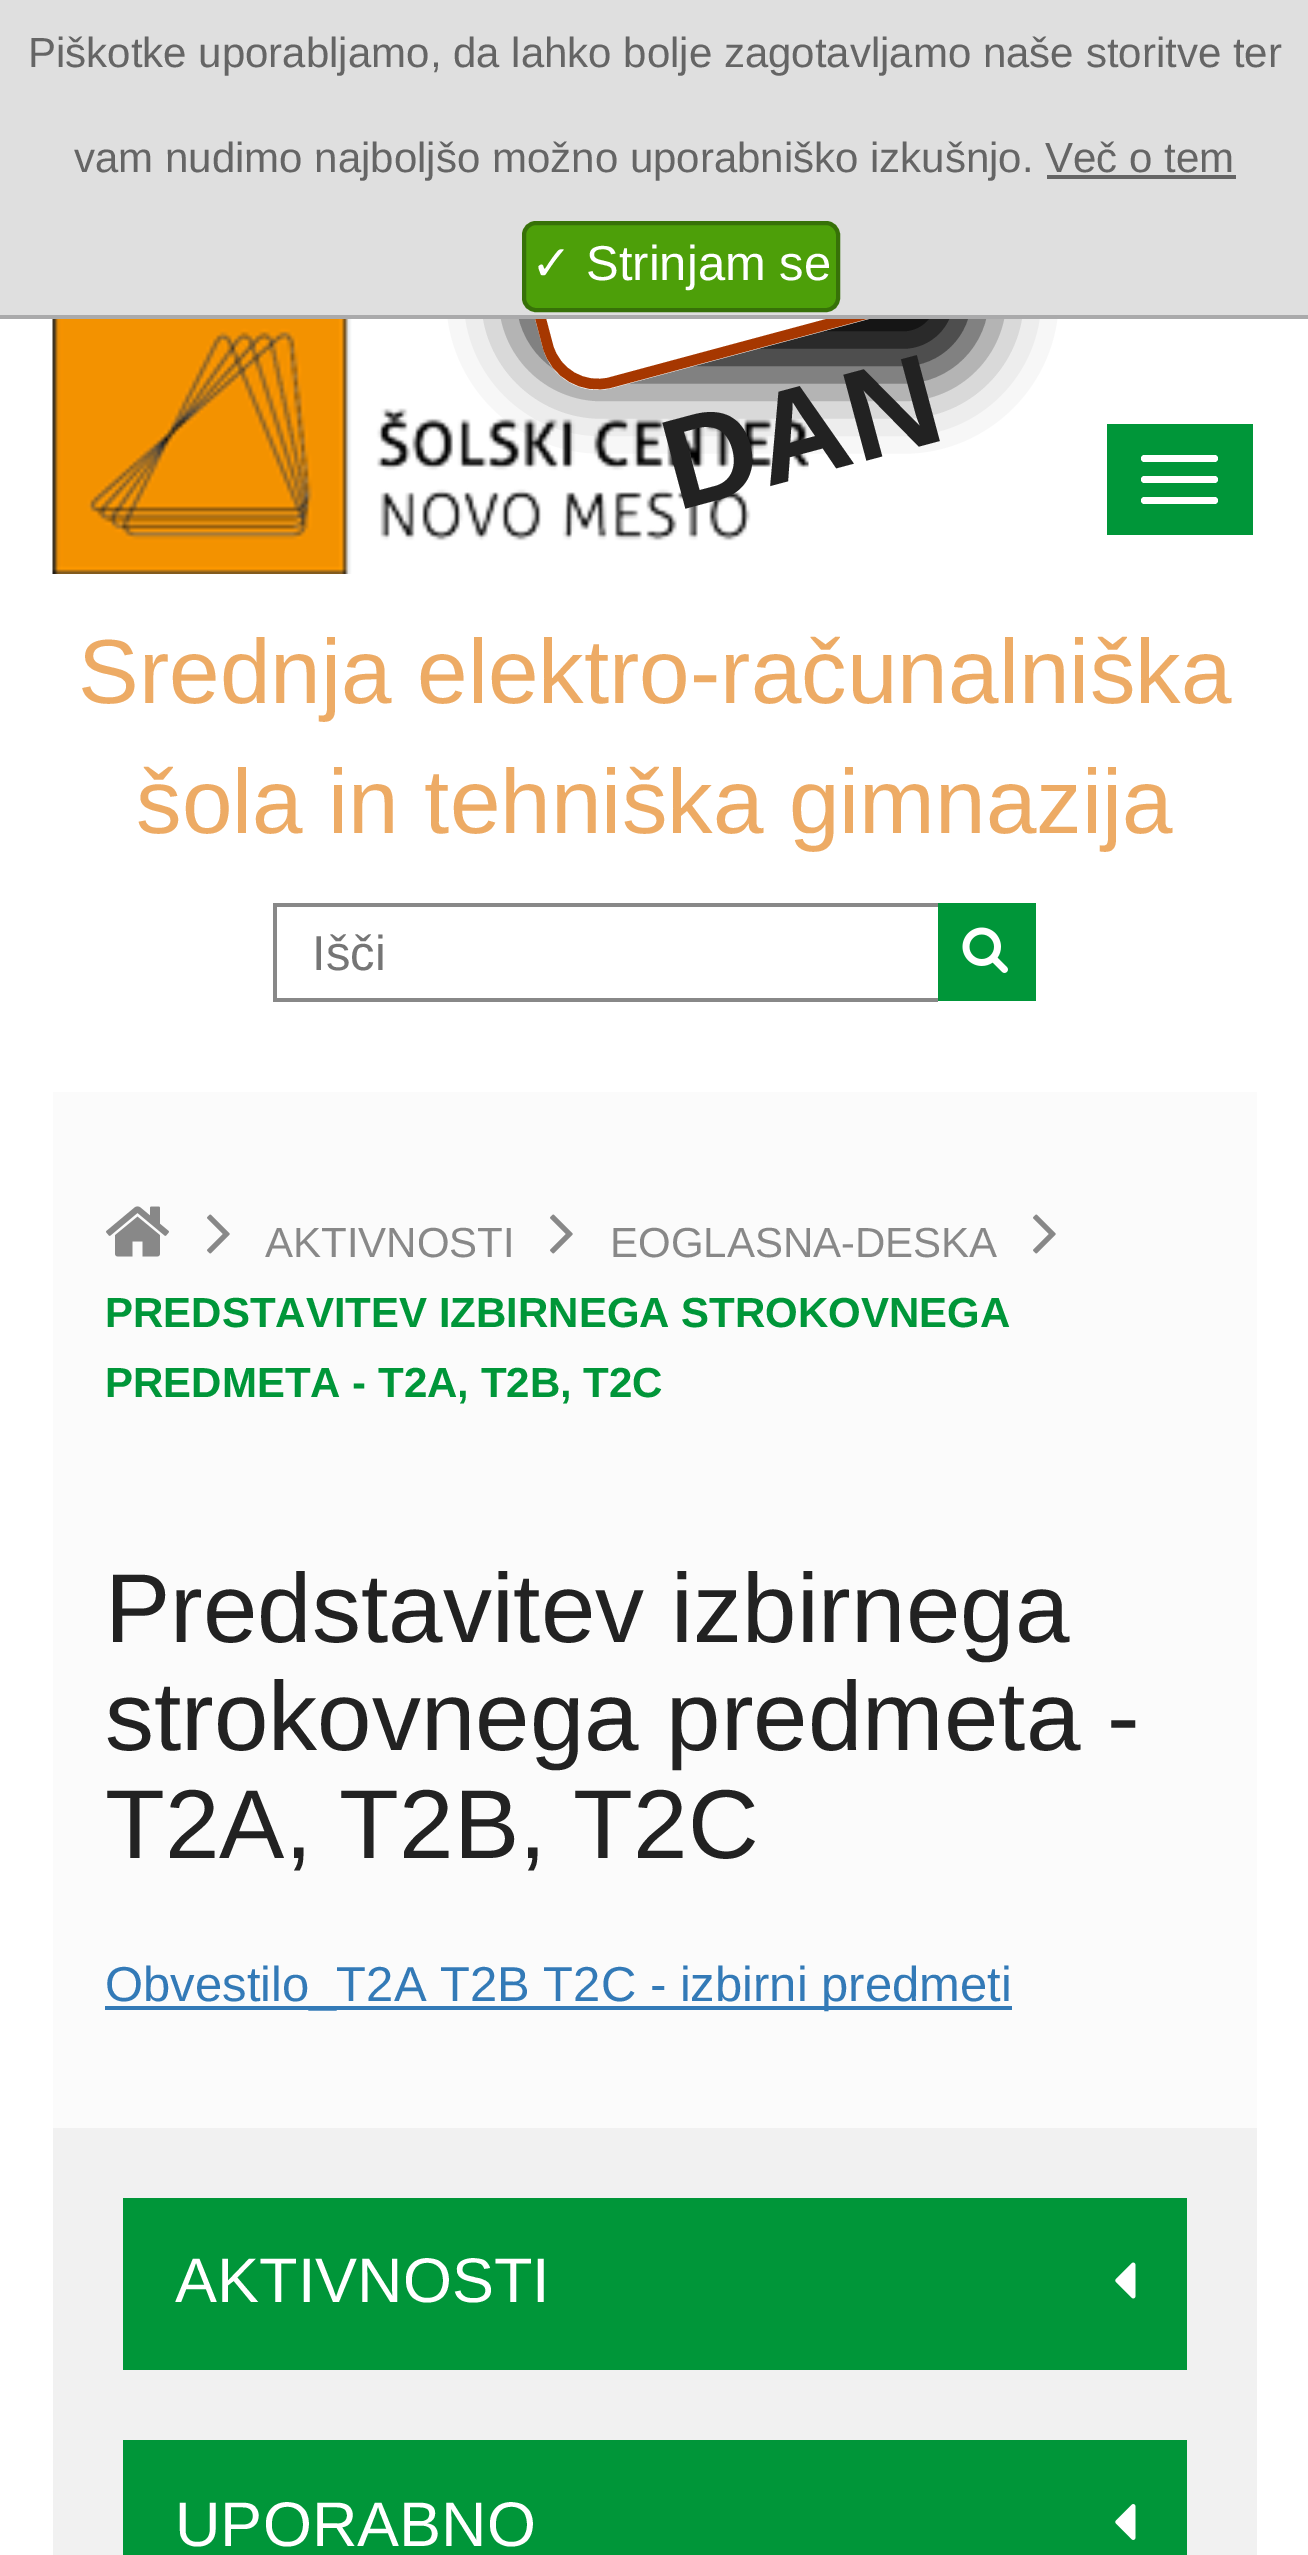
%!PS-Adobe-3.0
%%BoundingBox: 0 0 1308 2555
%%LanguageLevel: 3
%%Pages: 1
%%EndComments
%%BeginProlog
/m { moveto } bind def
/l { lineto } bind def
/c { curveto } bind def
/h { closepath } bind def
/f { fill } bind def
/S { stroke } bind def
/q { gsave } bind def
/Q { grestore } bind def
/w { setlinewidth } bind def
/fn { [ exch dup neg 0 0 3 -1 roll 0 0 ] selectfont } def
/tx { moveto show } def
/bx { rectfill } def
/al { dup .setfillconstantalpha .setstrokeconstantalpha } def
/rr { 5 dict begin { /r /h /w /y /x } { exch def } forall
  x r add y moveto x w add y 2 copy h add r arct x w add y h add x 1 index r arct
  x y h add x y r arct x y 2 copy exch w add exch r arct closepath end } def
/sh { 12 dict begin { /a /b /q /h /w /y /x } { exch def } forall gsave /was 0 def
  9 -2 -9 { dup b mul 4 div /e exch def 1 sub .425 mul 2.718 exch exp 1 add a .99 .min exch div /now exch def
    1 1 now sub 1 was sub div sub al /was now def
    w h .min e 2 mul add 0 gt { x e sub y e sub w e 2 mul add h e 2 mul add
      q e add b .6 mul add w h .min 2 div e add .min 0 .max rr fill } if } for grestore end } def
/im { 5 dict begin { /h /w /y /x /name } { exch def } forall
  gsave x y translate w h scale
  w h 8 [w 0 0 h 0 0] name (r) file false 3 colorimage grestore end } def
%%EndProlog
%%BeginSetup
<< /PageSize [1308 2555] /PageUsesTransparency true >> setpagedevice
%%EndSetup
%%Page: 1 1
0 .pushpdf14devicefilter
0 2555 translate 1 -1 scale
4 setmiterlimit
1 setgray
0 0 1308 2555 bx
(image0.raw) 52 319 757 255 im
0 setgray
525 182 455 193 56 35 1 sh
1 setgray
562 202 m 893 113 l 923 105 954 123 962 152 c 983 230 l 991 260 973 291 943 299 c 612 388 l 582 396 551 378 543 348 c 522 270 l 514 240 532 210 562 202 c h f
0.651 0.216 0 setrgbcolor
10.5 w
563.5 206.5 m 894.5 118 l 921.5 110.5 949.5 126.5 957 154 c 977.5 231.5 l 985 258.5 969 286.5 941.5 293.5 c 610.5 382.5 l 583.5 389.5 555.5 373.5 548 346.5 c 527.5 269 l 520 242 536 214 563.5 206.5 c h S
0.875 setgray
0 0 1308 315 bx
0.667 0.667 0.671 setrgbcolor
0 315 1308 4 bx
/LiberationSans-Regular 42 fn
0.396 setgray
(Piškotke uporabljamo, da lahko bolje zagotavljamo naše storitve ter) 28 67 tx
(vam nudimo najboljšo možno uporabniško izkušnjo. Več o tem) 74 172 tx
1047 175 189 4 bx
0.302 0.624 0.035 setrgbcolor
524 223 314 87 12 rr q f Q
0.216 0.443 0.031 setrgbcolor
4 w
S
/DejaVuSans-Regular 49 fn
1 setgray
(✓) 531 280 tx
/LiberationSans-Regular 49 fn
(Strinjam se) 586 280 tx
/LiberationSans-Bold 129.5 fn
0.133 setgray
q 677 511 translate -15 rotate 0 0 m (DAN) show Q
0 0.588 0.224 setrgbcolor
1107 424 146 111 bx
1 setgray
1141 455 77 7 3.5 rr f
1141 476 77 7 3.5 rr f
1141 497 77 7 3.5 rr f
/LiberationSans-Regular 91 fn
0.929 0.671 0.396 setrgbcolor
(Srednja elektro-računalniška) 78 703 tx
(šola in tehniška gimnazija) 136 833 tx
0.533 setgray
273 903 665 4 bx
273 998 665 4 bx
273 903 4 98 bx
/LiberationSans-Regular 49 fn
0.459 setgray
(Išči) 312 970 tx
0 0.588 0.224 setrgbcolor
938 903 98 98 bx
(image1.raw) 962 927 46 46 im
0.984 setgray
53 1092 1204 1036 bx
(image2.raw) 106 1206 63 51 im
(image3.raw) 207 1214 23 40 im
/LiberationSans-Regular 42 fn
0.533 setgray
(AKTIVNOSTI) 265 1257 tx
(image3.raw) 550 1214 23 40 im
(EOGLASNA-DESKA) 610 1257 tx
(image3.raw) 1033 1214 23 40 im
/LiberationSans-Bold 42 fn
0 0.588 0.224 setrgbcolor
(PREDSTAVITEV IZBIRNEGA STROKOVNEGA) 105 1327 tx
(PREDMETA - T2A, T2B, T2C) 105 1397 tx
/LiberationSans-Regular 98 fn
0.133 setgray
(Predstavitev izbirnega) 105 1642 tx
(strokovnega predmeta -) 105 1750 tx
(T2A, T2B, T2C) 105 1858 tx
0.2 0.478 0.718 setrgbcolor
105 2006 907 4 bx
/LiberationSans-Regular 49 fn
(Obvestilo_T2A T2B T2C - izbirni predmeti) 105 2001 tx
0.945 setgray
53 2128 1204 427 bx
0 0.588 0.224 setrgbcolor
123 2198 1064 172 bx
/LiberationSans-Regular 63 fn
1 setgray
(AKTIVNOSTI) 175 2302 tx
(image4.raw) 1115 2262 21 37 im
0 0.588 0.224 setrgbcolor
123 2440 1064 115 bx
1 setgray
(UPORABNO) 175 2546 tx
(image5.raw) 1115 2504 21 36 im
.poppdf14devicefilter showpage
%%EOF
